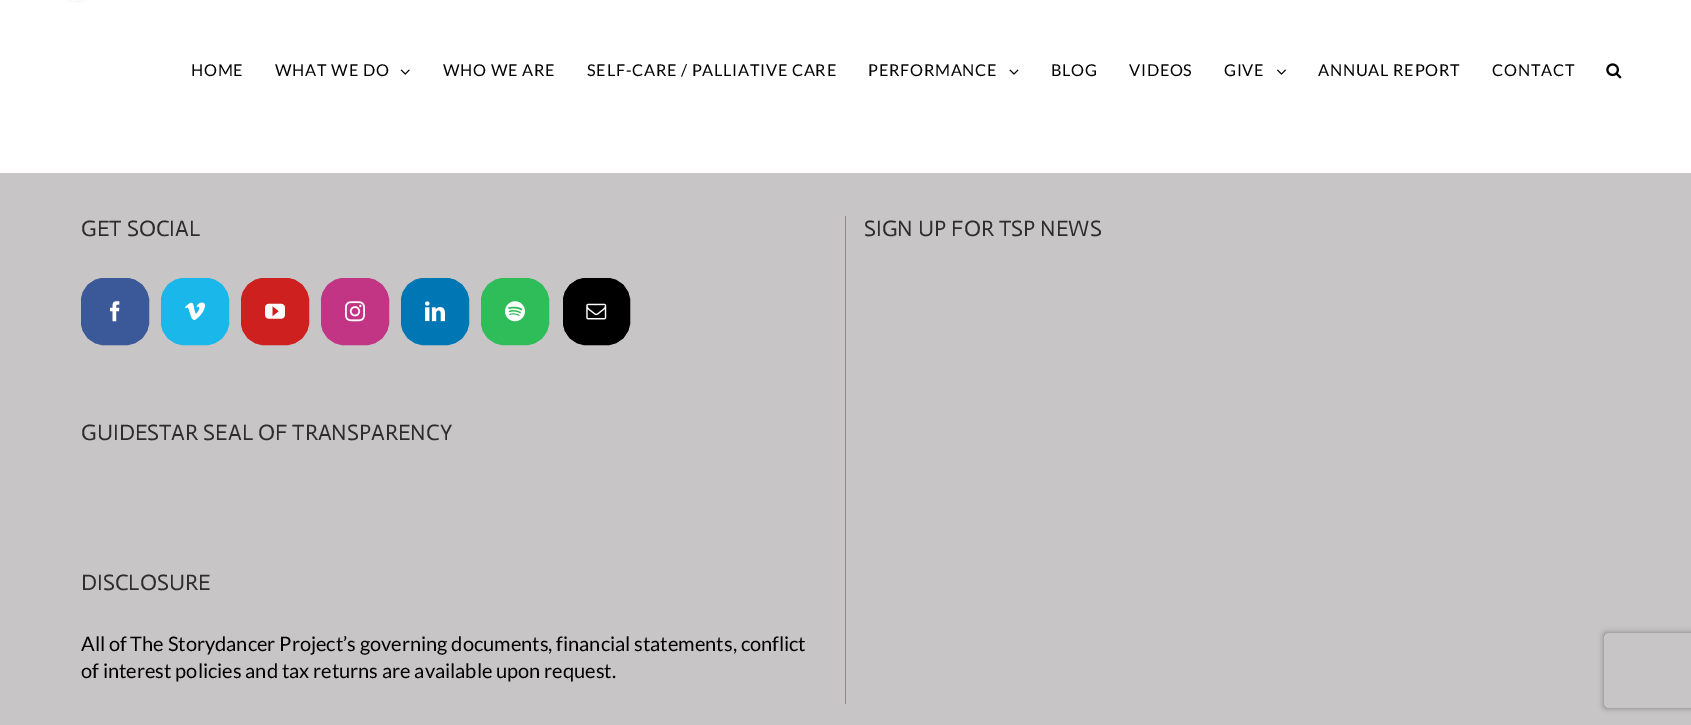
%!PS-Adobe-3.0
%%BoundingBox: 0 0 1691 725
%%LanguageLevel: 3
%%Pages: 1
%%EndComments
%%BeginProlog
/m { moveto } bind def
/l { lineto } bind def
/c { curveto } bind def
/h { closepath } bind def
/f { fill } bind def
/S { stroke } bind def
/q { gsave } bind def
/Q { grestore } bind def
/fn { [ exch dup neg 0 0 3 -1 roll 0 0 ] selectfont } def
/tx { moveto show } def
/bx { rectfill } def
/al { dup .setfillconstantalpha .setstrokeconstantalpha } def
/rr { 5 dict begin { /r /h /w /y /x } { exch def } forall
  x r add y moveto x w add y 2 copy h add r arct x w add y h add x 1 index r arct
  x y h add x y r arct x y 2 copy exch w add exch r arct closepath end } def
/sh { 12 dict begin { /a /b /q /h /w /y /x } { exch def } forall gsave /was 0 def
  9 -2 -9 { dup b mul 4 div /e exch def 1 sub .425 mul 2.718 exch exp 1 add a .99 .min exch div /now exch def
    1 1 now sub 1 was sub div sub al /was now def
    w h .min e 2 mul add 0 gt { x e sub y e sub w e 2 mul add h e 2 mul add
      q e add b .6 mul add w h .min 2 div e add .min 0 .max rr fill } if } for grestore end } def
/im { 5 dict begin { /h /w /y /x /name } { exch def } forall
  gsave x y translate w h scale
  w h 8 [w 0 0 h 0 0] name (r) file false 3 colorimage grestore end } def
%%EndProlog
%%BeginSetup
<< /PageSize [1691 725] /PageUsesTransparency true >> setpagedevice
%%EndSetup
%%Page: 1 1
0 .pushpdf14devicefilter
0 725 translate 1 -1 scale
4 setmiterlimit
1 setgray
0 0 1691 725 bx
(image0.raw) 65 0 23 3 im
/Lato-Regular 16.25 fn
0 setgray
191 76 m 0.75 0 (HOME) ashow
275 76 m 0.75 0 (WHAT WE DO) ashow
(image1.raw) 400 69 10 6 im
443 76 m 0.75 0 (WHO WE ARE) ashow
587 76 m 0.75 0 (SELF-CARE / PALLIATIVE CARE) ashow
868 76 m 0.75 0 (PERFORMANCE) ashow
(image2.raw) 1009 69 10 6 im
1051 76 m 0.75 0 (BLOG) ashow
1129 76 m 0.75 0 (VIDEOS) ashow
1224 76 m 0.75 0 (GIVE) ashow
(image3.raw) 1277 69 9 6 im
1318 76 m 0.75 0 (ANNUAL REPORT) ashow
1492 76 m 0.75 0 (CONTACT) ashow
(image4.raw) 1606 63 16 16 im
0.78 0.773 0.773 setrgbcolor
0 173 1691 552 bx
0.557 0.541 0.541 setrgbcolor
845 216 1 488 bx
/Actor-Regular 22.5 fn
0.176 setgray
(GET SOCIAL) 81 236 tx
0.231 0.349 0.596 setrgbcolor
81.5 278.5 67 66 22.5 rr q f Q
S
(image5.raw) 110 301 10 21 im
0.102 0.718 0.918 setrgbcolor
161.5 278.5 67 66 22.5 rr q f Q
S
(image6.raw) 185 302 20 18 im
0.804 0.125 0.122 setrgbcolor
241.5 278.5 67 66 22.5 rr q f Q
S
(image7.raw) 265 303 20 16 im
0.757 0.208 0.518 setrgbcolor
321.5 278.5 67 66 22.5 rr q f Q
S
(image8.raw) 345 301 20 21 im
0 0.467 0.71 setrgbcolor
401.5 278.5 67 66 22.5 rr q f Q
S
(image9.raw) 425 301 20 21 im
0.18 0.741 0.349 setrgbcolor
481.5 278.5 67 66 22.5 rr q f Q
S
(image10.raw) 505 301 20 21 im
0 setgray
563.5 278.5 66 66 22.5 rr q f Q
S
(image11.raw) 586 303 21 17 im
0.176 setgray
(GUIDESTAR SEAL OF TRANSPARENCY) 81 440 tx
(DISCLOSURE) 81 590 tx
/Lato-Regular 20 fn
0 setgray
(All of The Storydancer Project’s governing documents, financial statements, conflict) 81 651 tx
(of interest policies and tax returns are available upon request.) 81 678 tx
/Actor-Regular 22.5 fn
0.176 setgray
(SIGN UP FOR TSP NEWS) 864 236 tx
q
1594 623 m 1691 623 l 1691 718 l 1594 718 l h 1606.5 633 m 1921.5 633 l 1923 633 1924 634 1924 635.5 c 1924 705.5 l 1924 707 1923 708 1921.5 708 c 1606.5 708 l 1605 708 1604 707 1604 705.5 c 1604 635.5 l 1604 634 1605 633 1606.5 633 c h eoclip newpath
0.502 setgray
1604 633 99 75 2.5 3 1 sh
Q
.poppdf14devicefilter showpage
%%EOF
